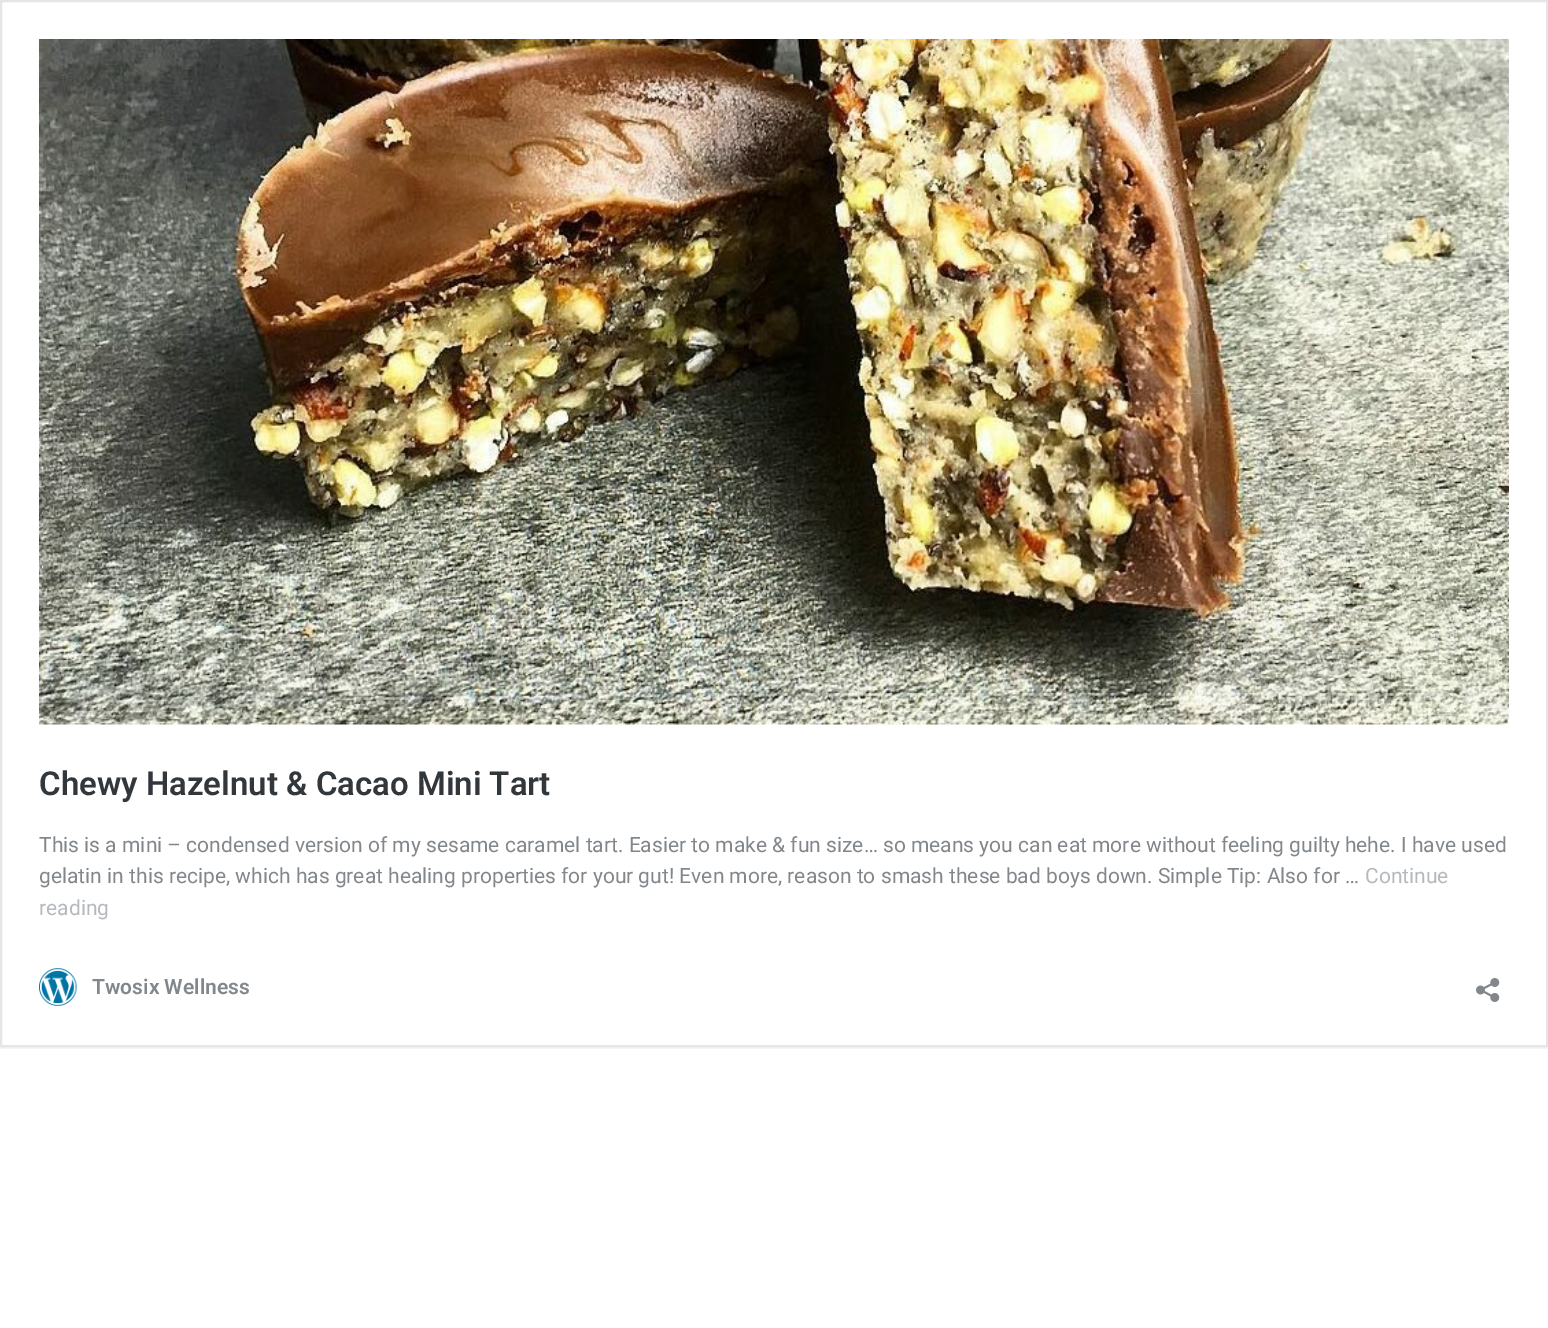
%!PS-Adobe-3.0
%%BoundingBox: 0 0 1548 1328
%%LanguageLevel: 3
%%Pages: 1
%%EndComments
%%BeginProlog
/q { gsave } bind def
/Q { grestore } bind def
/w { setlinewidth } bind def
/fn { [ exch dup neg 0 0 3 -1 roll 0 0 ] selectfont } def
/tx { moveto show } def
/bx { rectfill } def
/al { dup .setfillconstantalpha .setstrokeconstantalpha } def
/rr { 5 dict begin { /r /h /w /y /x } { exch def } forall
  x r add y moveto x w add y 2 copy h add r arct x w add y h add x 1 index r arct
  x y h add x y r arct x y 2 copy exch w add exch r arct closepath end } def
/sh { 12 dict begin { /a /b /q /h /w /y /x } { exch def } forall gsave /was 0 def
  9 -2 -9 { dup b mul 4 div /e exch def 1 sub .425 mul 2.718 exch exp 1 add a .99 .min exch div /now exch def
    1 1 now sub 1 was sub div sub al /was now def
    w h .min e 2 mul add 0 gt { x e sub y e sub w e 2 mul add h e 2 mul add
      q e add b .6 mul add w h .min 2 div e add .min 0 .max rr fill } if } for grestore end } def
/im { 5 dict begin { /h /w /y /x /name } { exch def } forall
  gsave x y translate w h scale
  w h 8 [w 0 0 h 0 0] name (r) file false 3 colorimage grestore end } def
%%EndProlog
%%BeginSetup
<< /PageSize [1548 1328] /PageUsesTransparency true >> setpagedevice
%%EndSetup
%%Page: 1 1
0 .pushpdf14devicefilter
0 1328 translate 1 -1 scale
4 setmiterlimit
1 setgray
0 0 1548 1328 bx
q
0 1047 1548 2 rectclip
0 setgray
0 2 1548 1047 0 1 0.05 sh
Q
0.898 setgray
2 w
1 1 1546 1045 rectstroke
(image0.raw) 39 39 1470 686 im
/Roboto-SemiBold 33 fn
0.196 0.216 0.235 setrgbcolor
(Chewy Hazelnut & Cacao Mini Tart) 39 795 tx
/Roboto-Regular 21 fn
0.51 0.529 0.549 setrgbcolor
(This is a mini – condensed version of my sesame caramel tart. Easier to make & fun size… so means you can eat more without feeling guilty hehe. I have used) 39 852 tx
(gelatin in this recipe, which has great healing properties for your gut! Even more, reason to smash these bad boys down. Simple Tip: Also for …) 39 883 tx
0.706 0.725 0.745 setrgbcolor
(Continue) 1365 883 tx
(reading) 39 915 tx
(image1.raw) 39 968 38 38 im
/Roboto-SemiBold 21 fn
0.51 0.529 0.549 setrgbcolor
(Twosix Wellness) 92 994 tx
(image2.raw) 1476 978 24 24 im
.poppdf14devicefilter showpage
%%EOF
